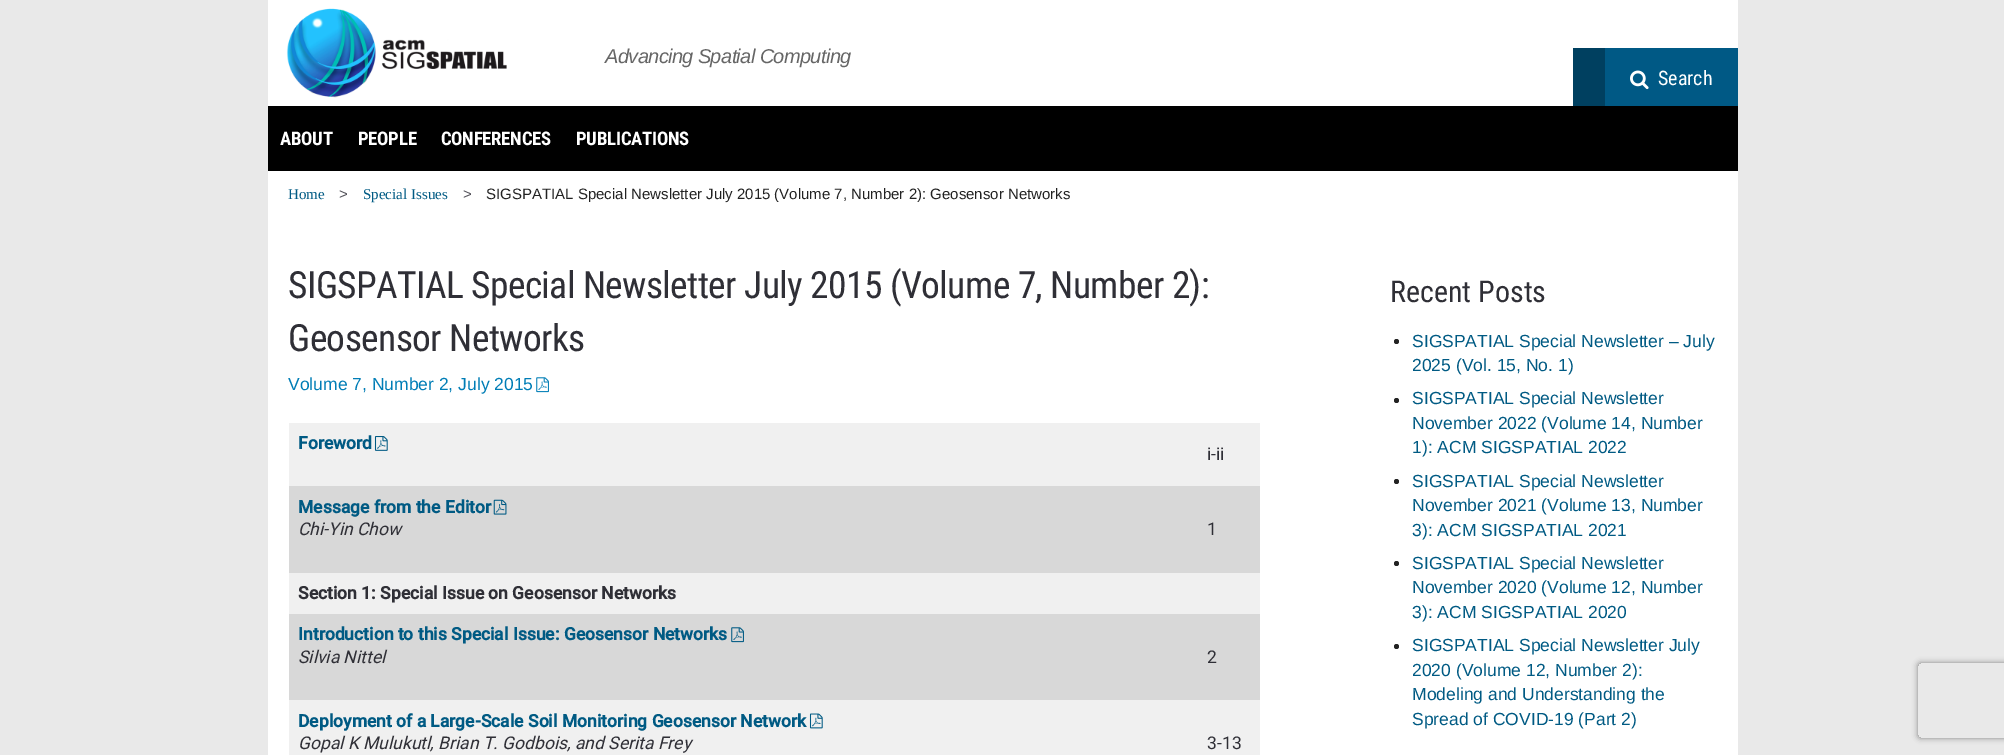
%!PS-Adobe-3.0
%%BoundingBox: 0 0 2004 755
%%LanguageLevel: 3
%%Pages: 1
%%EndComments
%%BeginProlog
/m { moveto } bind def
/l { lineto } bind def
/c { curveto } bind def
/h { closepath } bind def
/f { fill } bind def
/q { gsave } bind def
/Q { grestore } bind def
/fn { [ exch dup neg 0 0 3 -1 roll 0 0 ] selectfont } def
/tx { moveto show } def
/bx { rectfill } def
/al { dup .setfillconstantalpha .setstrokeconstantalpha } def
/ci { newpath 0 360 arc closepath } def
/rr { 5 dict begin { /r /h /w /y /x } { exch def } forall
  x r add y moveto x w add y 2 copy h add r arct x w add y h add x 1 index r arct
  x y h add x y r arct x y 2 copy exch w add exch r arct closepath end } def
/sh { 12 dict begin { /a /b /q /h /w /y /x } { exch def } forall gsave /was 0 def
  9 -2 -9 { dup b mul 4 div /e exch def 1 sub .425 mul 2.718 exch exp 1 add a .99 .min exch div /now exch def
    1 1 now sub 1 was sub div sub al /was now def
    w h .min e 2 mul add 0 gt { x e sub y e sub w e 2 mul add h e 2 mul add
      q e add b .6 mul add w h .min 2 div e add .min 0 .max rr fill } if } for grestore end } def
/im { 5 dict begin { /h /w /y /x /name } { exch def } forall
  gsave x y translate w h scale
  w h 8 [w 0 0 h 0 0] name (r) file false 3 colorimage grestore end } def
%%EndProlog
%%BeginSetup
<< /PageSize [2004 755] /PageUsesTransparency true >> setpagedevice
%%EndSetup
%%Page: 1 1
0 .pushpdf14devicefilter
0 755 translate 1 -1 scale
4 setmiterlimit
0.914 setgray
0 0 2004 755 bx
1 setgray
268 0 1470 106 bx
(image0.raw) 286 8 221 90 im
/LiberationSans-Italic 20 fn
0.4 setgray
605 63 m -0.62 0 (Advancing Spatial Computing) ashow
0 0.251 0.376 setrgbcolor
1573 48 32 58 bx
0 0.349 0.522 setrgbcolor
1605 48 133 58 bx
(image1.raw) 1630 70 19 20 im
/RobotoCondensed-Regular 20 fn
1 setgray
(Search) 1658 85 tx
0 setgray
268 106 1470 65 bx
/RobotoCondensed-Bold 18.75 fn
1 setgray
280 145 m -0.25 0 (ABOUT) ashow
358 145 m -0.25 0 (PEOPLE) ashow
441 145 m -0.25 0 (CONFERENCES) ashow
576 145 m -0.25 0 (PUBLICATIONS) ashow
268 171 1470 584 bx
/LiberationSerif-Regular 15 fn
0 0.353 0.514 setrgbcolor
(Home) 288 199 tx
/LiberationSans-Regular 15 fn
0.318 0.314 0.345 setrgbcolor
(>) 339 199 tx
/LiberationSerif-Regular 15 fn
0 0.353 0.514 setrgbcolor
(Special Issues) 363 199 tx
/LiberationSans-Regular 15 fn
0.318 0.314 0.345 setrgbcolor
(>) 463 199 tx
0.133 setgray
(SIGSPATIAL Special Newsletter July 2015 \(Volume 7, Number 2\): Geosensor Networks) 486 199 tx
/RobotoCondensed-Regular 37.5 fn
0.184 0.184 0.212 setrgbcolor
288 298 m -0.62 0 (SIGSPATIAL Special Newsletter July 2015 \(Volume 7, Number 2\):) ashow
288 351 m -0.62 0 (Geosensor Networks) ashow
/LiberationSans-Regular 17.5 fn
0 0.49 0.714 setrgbcolor
(Volume 7, Number 2, July 2015) 288 390 tx
(image2.raw) 536 377 13 16 im
0.941 setgray
289 423 971 63 bx
/Roboto-Bold 17.5 fn
0 0.353 0.514 setrgbcolor
(Foreword) 298 449 tx
(image3.raw) 374 436 14 15 im
/Roboto-Regular 17.5 fn
0.184 0.184 0.212 setrgbcolor
(i-ii) 1207 460 tx
0.847 setgray
289 486 971 87 bx
/Roboto-Bold 17.5 fn
0 0.353 0.514 setrgbcolor
(Message from the Editor) 298 513 tx
(image4.raw) 493 499 14 16 im
/Roboto-Italic 17.5 fn
0.184 0.184 0.212 setrgbcolor
(Chi-Yin Chow) 298 535 tx
/Roboto-Regular 17.5 fn
(1) 1207 535 tx
0.941 setgray
289 573 971 41 bx
/Roboto-Bold 17.5 fn
0.184 0.184 0.212 setrgbcolor
(Section 1: Special Issue on Geosensor Networks) 298 599 tx
0.847 setgray
289 614 971 86 bx
0 0.353 0.514 setrgbcolor
(Introduction to this Special Issue: Geosensor Networks) 298 640 tx
(image5.raw) 731 627 13 16 im
/Roboto-Italic 17.5 fn
0.184 0.184 0.212 setrgbcolor
(Silvia Nittel) 298 663 tx
/Roboto-Regular 17.5 fn
(2) 1207 663 tx
0.941 setgray
289 700 971 55 bx
/Roboto-Bold 17.5 fn
0 0.353 0.514 setrgbcolor
(Deployment of a Large-Scale Soil Monitoring Geosensor Network) 298 727 tx
(image6.raw) 809 713 14 16 im
/Roboto-Italic 17.5 fn
0.184 0.184 0.212 setrgbcolor
(Gopal K Mulukutl, Brian T. Godbois, and Serita Frey) 298 749 tx
/Roboto-Regular 17.5 fn
(3-13) 1207 749 tx
/RobotoCondensed-Regular 30 fn
(Recent Posts) 1390 302 tx
0.133 setgray
1396.5 341.5 2.5 ci f
/LiberationSans-Regular 17.5 fn
0 0.353 0.514 setrgbcolor
(SIGSPATIAL Special Newsletter – July) 1412 347 tx
(2025 \(Vol. 15, No. 1\)) 1412 371 tx
0.133 setgray
1396.5 400.5 2.5 ci f
0 0.353 0.514 setrgbcolor
(SIGSPATIAL Special Newsletter) 1412 404 tx
(November 2022 \(Volume 14, Number) 1412 429 tx
(1\): ACM SIGSPATIAL 2022) 1412 453 tx
0.133 setgray
1396.5 481.5 2.5 ci f
0 0.353 0.514 setrgbcolor
(SIGSPATIAL Special Newsletter) 1412 487 tx
(November 2021 \(Volume 13, Number) 1412 511 tx
(3\): ACM SIGSPATIAL 2021) 1412 536 tx
0.133 setgray
1396.5 563.5 2.5 ci f
0 0.353 0.514 setrgbcolor
(SIGSPATIAL Special Newsletter) 1412 569 tx
(November 2020 \(Volume 12, Number) 1412 593 tx
(3\): ACM SIGSPATIAL 2020) 1412 618 tx
0.133 setgray
1396.5 646.5 2.5 ci f
0 0.353 0.514 setrgbcolor
(SIGSPATIAL Special Newsletter July) 1412 651 tx
(2020 \(Volume 12, Number 2\):) 1412 676 tx
(Modeling and Understanding the) 1412 700 tx
(Spread of COVID-19 \(Part 2\)) 1412 725 tx
q
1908 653 m 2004 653 l 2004 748 l 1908 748 l h 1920.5 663 m 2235.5 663 l 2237 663 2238 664 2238 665.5 c 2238 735.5 l 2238 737 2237 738 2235.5 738 c 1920.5 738 l 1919 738 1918 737 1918 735.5 c 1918 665.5 l 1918 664 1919 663 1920.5 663 c h eoclip newpath
0.502 setgray
1918 663 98 75 2.5 3 1 sh
Q
.poppdf14devicefilter showpage
%%EOF
